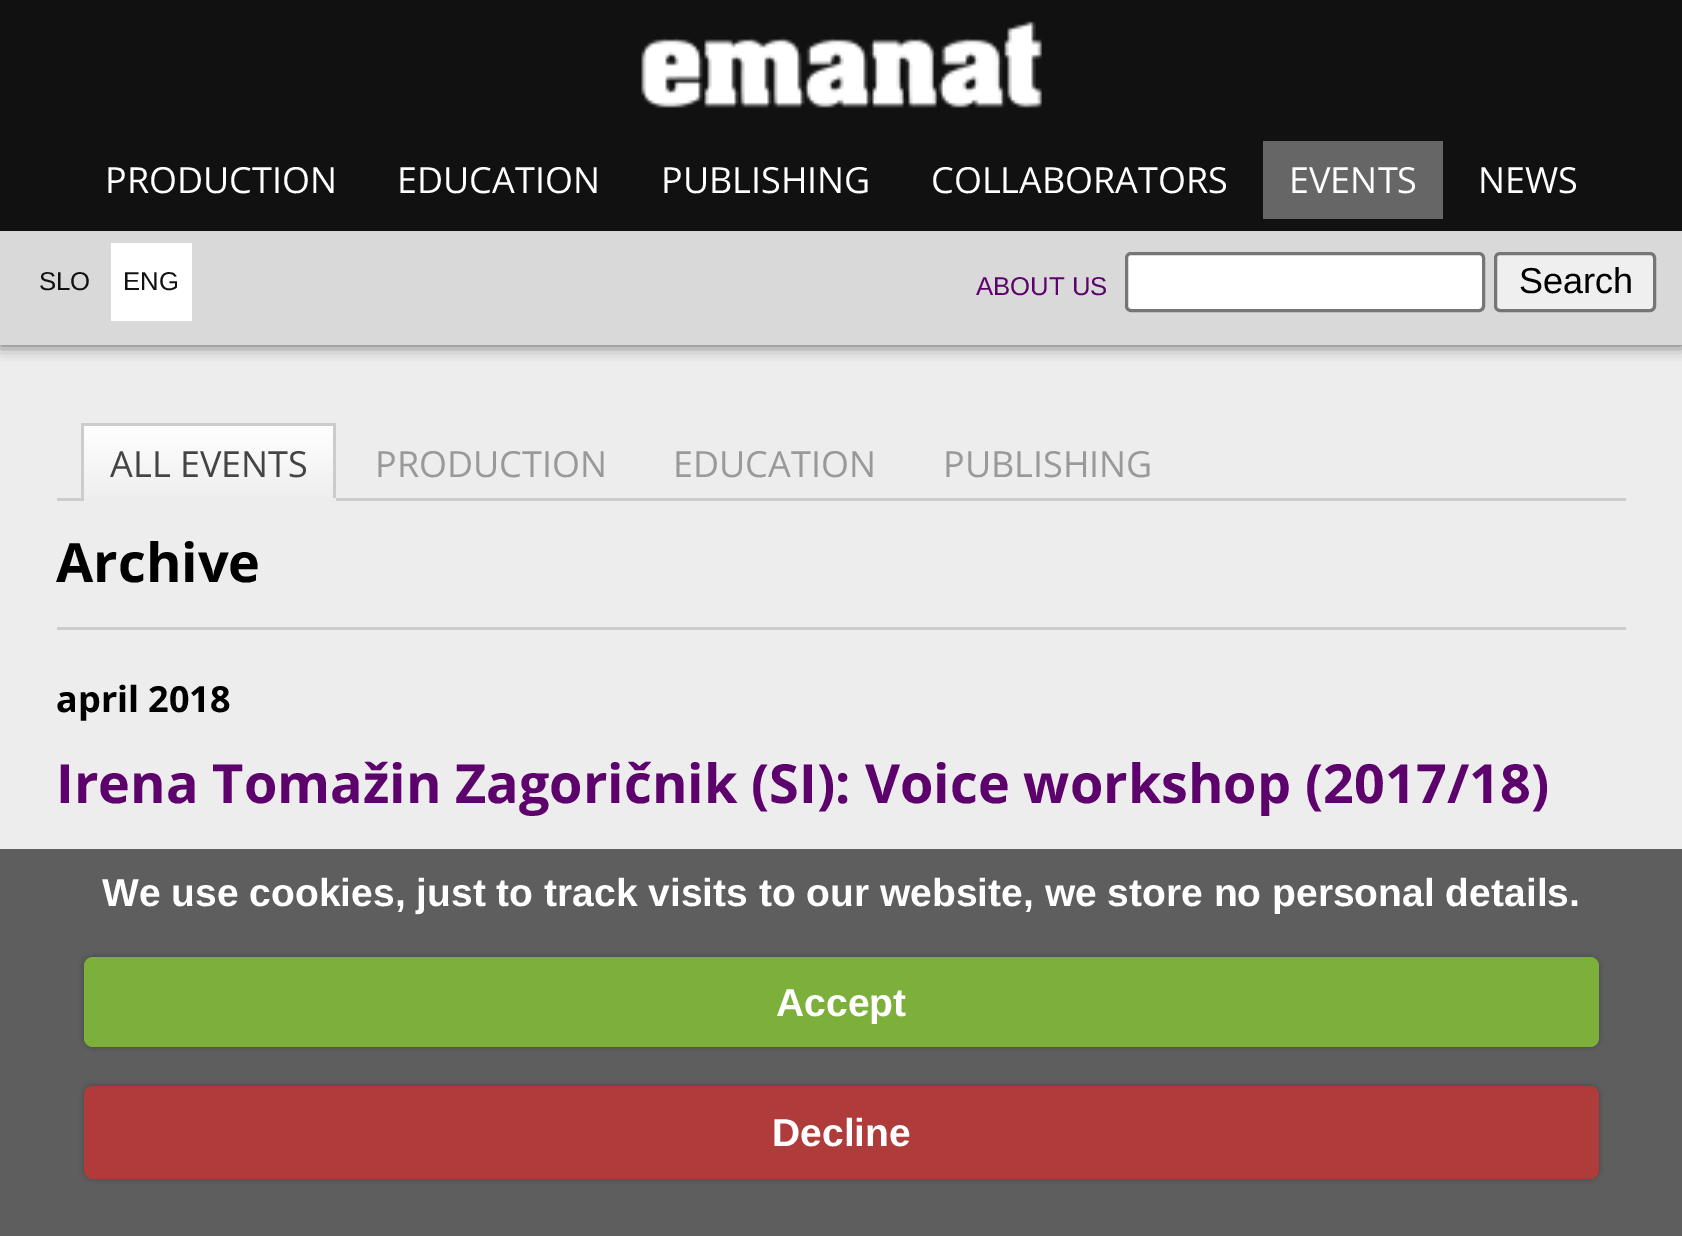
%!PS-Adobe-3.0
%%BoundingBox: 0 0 1682 1236
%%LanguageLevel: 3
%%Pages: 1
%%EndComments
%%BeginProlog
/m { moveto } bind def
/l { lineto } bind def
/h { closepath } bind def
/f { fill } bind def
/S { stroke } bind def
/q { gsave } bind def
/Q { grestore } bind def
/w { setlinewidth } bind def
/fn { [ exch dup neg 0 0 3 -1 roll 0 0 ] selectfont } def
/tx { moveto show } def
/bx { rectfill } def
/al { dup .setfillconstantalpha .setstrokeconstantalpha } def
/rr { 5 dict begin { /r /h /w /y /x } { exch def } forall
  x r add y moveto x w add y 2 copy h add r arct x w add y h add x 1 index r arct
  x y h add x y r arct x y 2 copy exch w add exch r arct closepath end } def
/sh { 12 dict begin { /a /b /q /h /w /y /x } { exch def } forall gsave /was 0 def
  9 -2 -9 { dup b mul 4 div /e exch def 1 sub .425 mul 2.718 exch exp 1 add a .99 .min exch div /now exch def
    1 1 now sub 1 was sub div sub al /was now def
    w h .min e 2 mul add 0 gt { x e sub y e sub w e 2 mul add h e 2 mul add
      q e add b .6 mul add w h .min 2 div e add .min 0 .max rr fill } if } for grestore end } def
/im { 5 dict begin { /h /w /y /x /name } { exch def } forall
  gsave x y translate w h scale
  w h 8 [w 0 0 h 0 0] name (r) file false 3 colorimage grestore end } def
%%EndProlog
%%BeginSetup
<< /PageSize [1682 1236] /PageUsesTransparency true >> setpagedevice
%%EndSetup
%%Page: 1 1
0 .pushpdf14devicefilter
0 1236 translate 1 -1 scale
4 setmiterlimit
0.929 setgray
0 0 1682 1236 bx
0.333 setgray
0 0 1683 345 0 7.5 1 sh
0.851 setgray
0 231 1682 114 bx
0.067 setgray
0 0 1682 231 bx
(image0.raw) 641 21 401 87 im
/OpenSans-Regular 36 fn
1 setgray
(PRODUCTION) 105 193 tx
(EDUCATION) 397 193 tx
(PUBLISHING) 661 193 tx
(COLLABORATORS) 931 193 tx
0.4 setgray
1263 141 180 78 bx
1 setgray
(EVENTS) 1289 193 tx
(NEWS) 1478 193 tx
/LiberationSans-Regular 25.75 fn
0.067 setgray
(SLO) 39 290 tx
1 setgray
111 243 81 78 bx
0.067 setgray
(ENG) 123 290 tx
0.365 0.004 0.427 setrgbcolor
(ABOUT US) 976 295 tx
1 setgray
1126.5 253.5 357 57 4.5 rr q f Q
0.463 setgray
3 w
S
0.937 setgray
1495.5 253.5 159 57 4.5 rr q f Q
0.463 setgray
S
/LiberationSans-Regular 36 fn
0 setgray
(Search) 1519 293 tx
0.8 setgray
57 498 1569 3 bx
q 84 426 m 333 426 l 333 496 l 84 496 l h clip newpath
<< /ShadingType 2 /ColorSpace /DeviceRGB /Coords [209 426 209 498] /Extend [true true] /Function << /FunctionType 2 /Domain [0 1] /C0 [1 1 1] /C1 [0.937 0.937 0.937] /N 1 >> >> shfill Q
81 423 255 3 bx
333 423 3 78 bx
0.929 setgray
81 498 255 3 bx
0.8 setgray
81 423 3 78 bx
/OpenSans-Regular 36 fn
0.267 setgray
(ALL EVENTS) 110 477 tx
0.6 setgray
(PRODUCTION) 375 477 tx
(EDUCATION) 673 477 tx
(PUBLISHING) 943 477 tx
0.8 setgray
57 627 1569 3 bx
/OpenSans-Bold 54 fn
0 setgray
(Archive) 56 582 tx
/OpenSans-Bold 36 fn
(april 2018) 56 712 tx
/OpenSans-Bold 54 fn
0.365 0.004 0.427 setrgbcolor
(Irena Tomažin Zagoričnik \(SI\): Voice workshop \(2017/18\)) 56 803 tx
0.95 al
0.337 setgray
0 849 1682 387 bx
/LiberationSans-Bold 39 fn
1 al
1 setgray
(We use cookies, just to track visits to our website, we store no personal details.) 102 906 tx
0 setgray
84 957 1515 90 9 3 0.25 sh
0.49 0.686 0.231 setrgbcolor
84 957 1515 90 9 rr f
1 setgray
(Accept) 776 1016 tx
0 setgray
84 1086 1515 93 9 3 0.25 sh
0.686 0.231 0.231 setrgbcolor
84 1086 1515 93 9 rr f
1 setgray
(Decline) 772 1146 tx
.poppdf14devicefilter showpage
%%EOF
